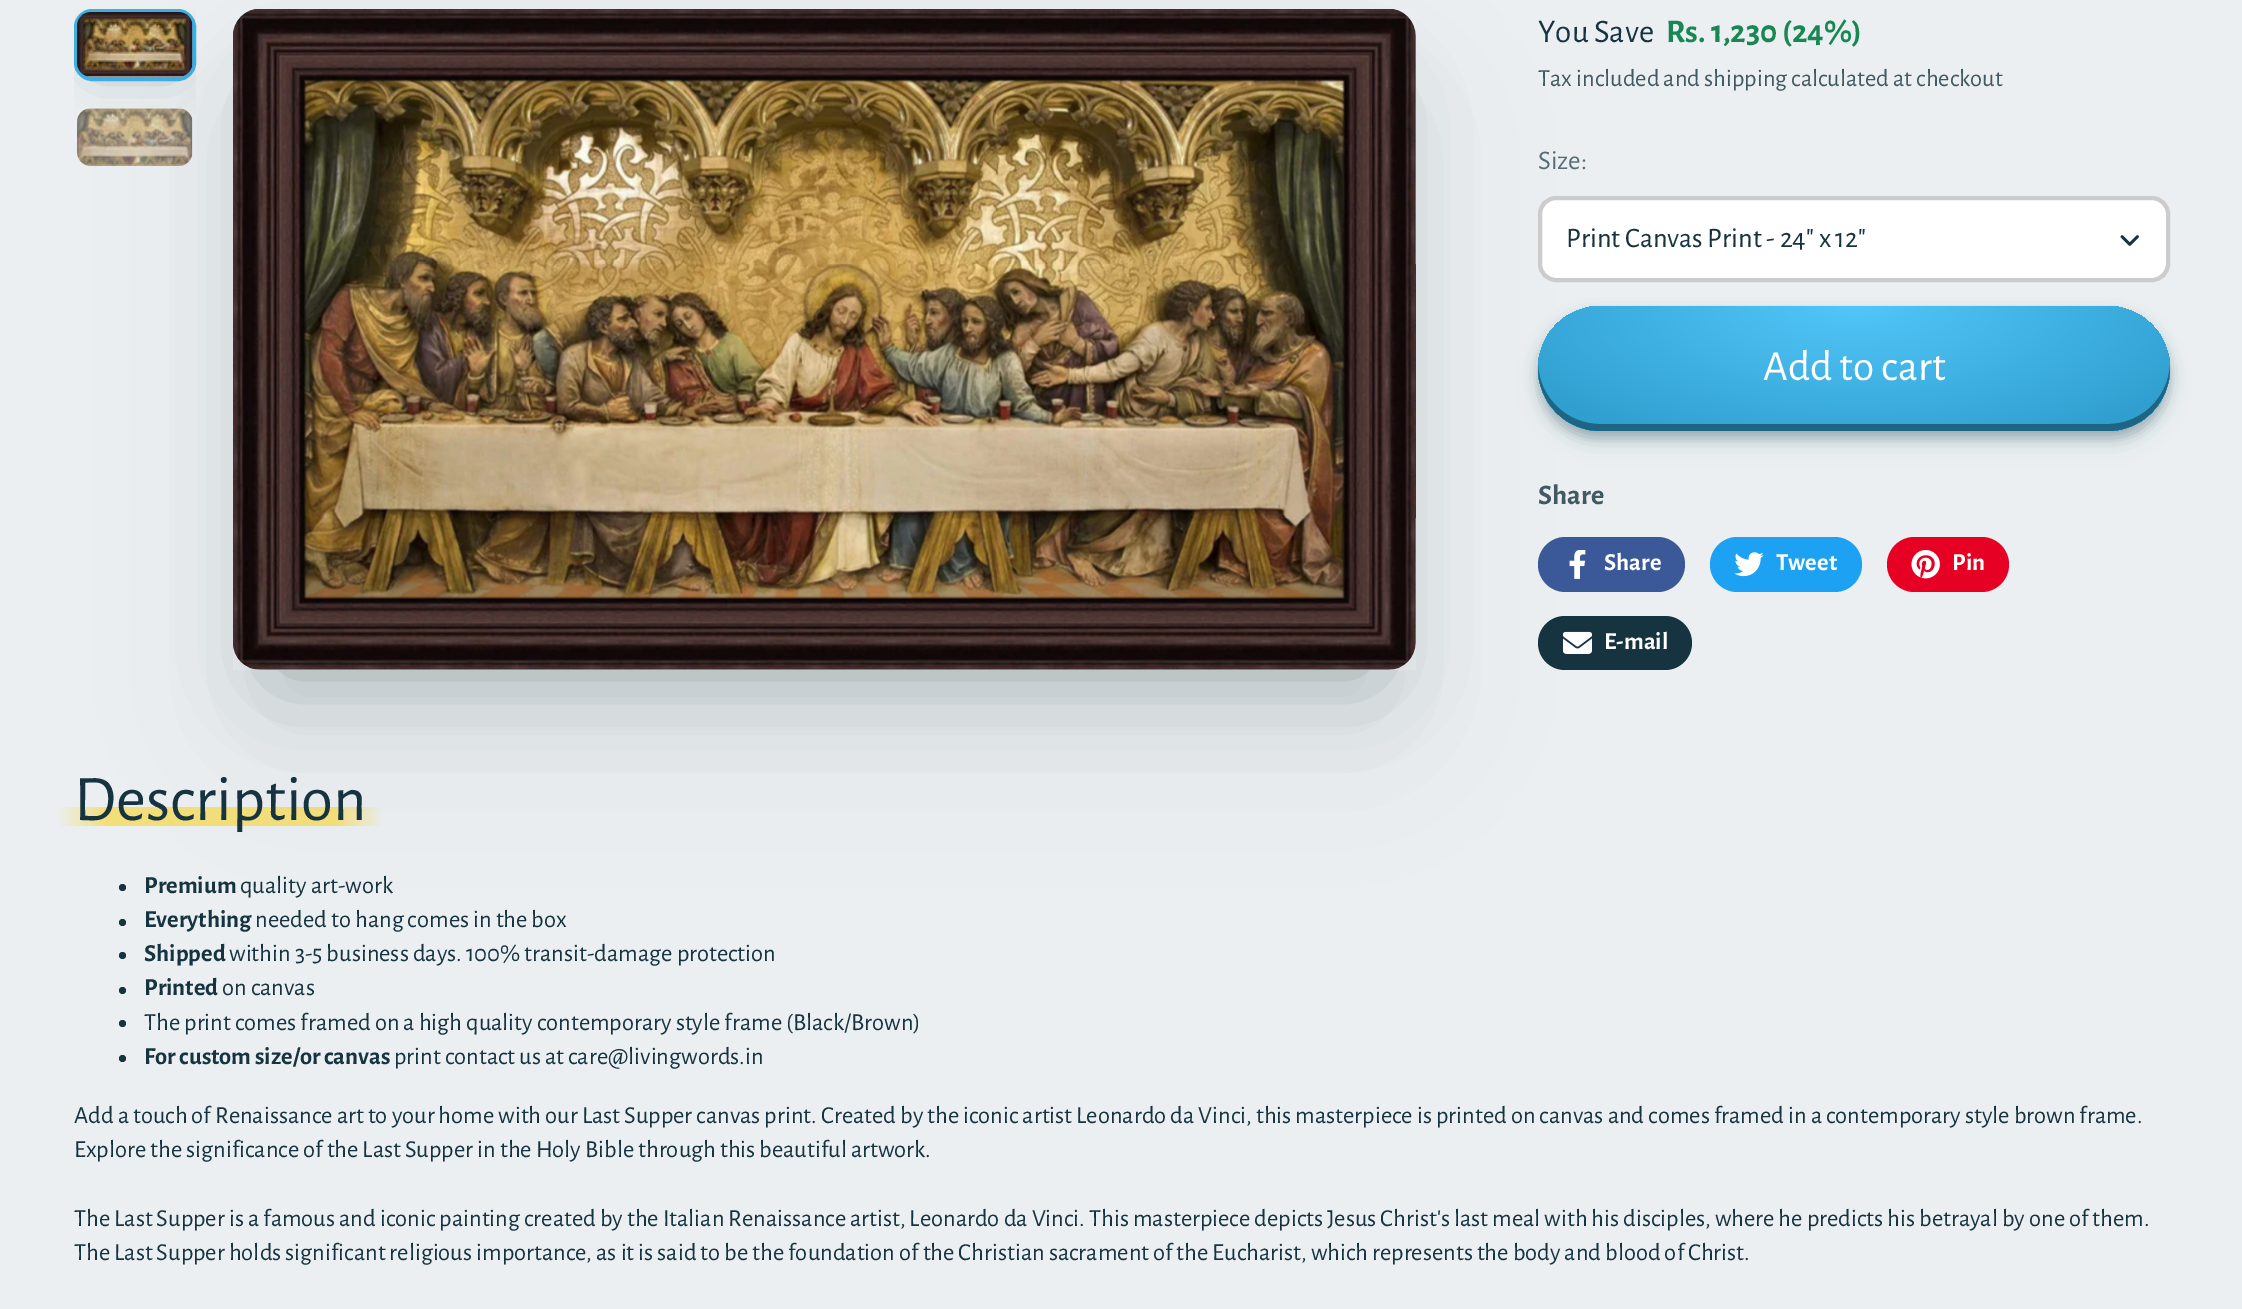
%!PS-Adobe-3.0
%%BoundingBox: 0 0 2242 1309
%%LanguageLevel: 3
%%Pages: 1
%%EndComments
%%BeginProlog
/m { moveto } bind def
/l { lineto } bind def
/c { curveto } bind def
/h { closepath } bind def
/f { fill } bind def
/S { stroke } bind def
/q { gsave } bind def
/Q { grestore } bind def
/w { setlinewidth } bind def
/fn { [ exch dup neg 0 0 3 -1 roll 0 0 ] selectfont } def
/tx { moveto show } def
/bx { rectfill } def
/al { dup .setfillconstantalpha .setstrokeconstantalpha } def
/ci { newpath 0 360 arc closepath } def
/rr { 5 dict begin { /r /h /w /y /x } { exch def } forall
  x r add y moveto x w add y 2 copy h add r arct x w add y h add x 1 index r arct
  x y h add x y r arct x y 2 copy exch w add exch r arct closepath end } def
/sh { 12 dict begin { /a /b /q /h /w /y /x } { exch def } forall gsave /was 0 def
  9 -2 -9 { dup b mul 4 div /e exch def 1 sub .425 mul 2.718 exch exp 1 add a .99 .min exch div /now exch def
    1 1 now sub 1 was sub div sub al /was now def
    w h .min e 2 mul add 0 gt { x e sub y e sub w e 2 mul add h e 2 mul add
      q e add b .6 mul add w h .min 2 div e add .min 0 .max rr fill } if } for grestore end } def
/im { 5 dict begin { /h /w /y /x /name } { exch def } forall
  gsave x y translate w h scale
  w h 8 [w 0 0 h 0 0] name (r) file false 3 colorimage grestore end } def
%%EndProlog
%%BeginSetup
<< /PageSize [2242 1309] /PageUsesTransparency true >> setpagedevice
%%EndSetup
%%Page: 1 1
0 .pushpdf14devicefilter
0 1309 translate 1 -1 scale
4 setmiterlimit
0.922 0.937 0.945 setrgbcolor
0 0 2242 1309 bx
q
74 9 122 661 rectclip
0.059 0.141 0.176 setrgbcolor
98 46 74 22 0 24.5 0.3 sh
Q
0.243 0.686 0.882 setrgbcolor
4 w
76 11 118 68 16 rr S
(image0.raw) 77 12 116 65 im
(image1.raw) 77 108 116 58 im
q 59 807 m 382 807 l 382 826 l 59 826 l h clip newpath
<< /ShadingType 2 /ColorSpace /DeviceRGB /Coords [58 817 383 817] /Extend [true true] /Function << /FunctionType 3 /Domain [0 1] /Functions [<< /FunctionType 2 /Domain [0 1] /C0 [0.922 0.937 0.945] /C1 [0.953 0.875 0.475] /N 1 >> << /FunctionType 2 /Domain [0 1] /C0 [0.953 0.875 0.475] /C1 [0.953 0.875 0.475] /N 1 >> << /FunctionType 2 /Domain [0 1] /C0 [0.953 0.875 0.475] /C1 [0.922 0.937 0.945] /N 1 >>] /Bounds [0.15 0.85] /Encode [0 1 0 1 0 1] >> >> shfill Q
0.059 0.141 0.176 setrgbcolor
278 102 1092 568 0 46 0.3 sh
0.086 0.2 0.251 setrgbcolor
122.5 887.5 3.5 ci f
122.5 922.5 3.5 ci f
0.059 0.141 0.176 setrgbcolor
264 116 1122 600 0 76.5 0.1 sh
1 setgray
233 9 1183 661 28 rr f
(image2.raw) 233 9 1183 661 im
/AlegreyaSans-Regular 33 fn
0.086 0.2 0.251 setrgbcolor
(You Save) 1538 42 tx
/AlegreyaSans-Bold 33 fn
0.098 0.529 0.329 setrgbcolor
(Rs. 1,230 \(24%\)) 1666 42 tx
/AlegreyaSans-Regular 24.5 fn
0.255 0.349 0.388 setrgbcolor
(Tax included and shipping calculated at checkout) 1538 86 tx
/AlegreyaSans-Regular 27 fn
0.337 0.42 0.459 setrgbcolor
(Size:) 1538 169 tx
1 setgray
1540 198 628 82 16 rr q f Q
0.8 setgray
S
/AlegreyaSans-Regular 28.25 fn
0.086 0.2 0.251 setrgbcolor
(Print Canvas Print - 24" x 12") 1566 247 tx
(image3.raw) 2120 235 19 11 im
0.075 0.247 0.322 setrgbcolor
1545 326 618 112 56 13 0.15 sh
1538 313 632 125 62.5 6.5 0.3 sh
q
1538 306 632 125 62.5 rr clip newpath
1545 326 618 112 56 13 0.15 sh
1538 313 632 125 62.5 6.5 0.3 sh
Q
q 1538 306 632 125 62.5 rr clip newpath 1854 306 translate 447 176 scale
<< /ShadingType 3 /ColorSpace /DeviceRGB /Coords [0 0 0 0 0 1] /Extend [true true] /Function << /FunctionType 3 /Domain [0 1] /Functions [<< /FunctionType 2 /Domain [0 1] /C0 [0.322 0.776 0.976] /C1 [0.184 0.62 0.812] /N 1 >> << /FunctionType 2 /Domain [0 1] /C0 [0.184 0.62 0.812] /C1 [0.184 0.62 0.812] /N 1 >>] /Bounds [0.9] /Encode [0 1 0 1] >> >> shfill Q
0.118 0.396 0.518 setrgbcolor
1538 365 m 1538 368 l 1538 403 1566 431 1600 431 c 2108 431 l 2142 431 2170 403 2170 368 c 2170 365 l 2168 398 2141 424 2108 424 c 1600 424 l 1567 424 1540 398 1538 365 c h f
/AlegreyaSans-Regular 43 fn
1 setgray
(Add to cart) 1763 380 tx
/AlegreyaSans-Bold 28.25 fn
0.255 0.349 0.388 setrgbcolor
(Share) 1538 504 tx
0.231 0.349 0.596 setrgbcolor
1538 537 147 55 27.5 rr f
(image4.raw) 1569 550 17 29 im
/AlegreyaSans-Bold 24.5 fn
1 setgray
(Share) 1604 570 tx
0.114 0.631 0.949 setrgbcolor
1710 537 152 55 27.5 rr f
(image5.raw) 1734 552 30 25 im
1 setgray
(Tweet) 1776 570 tx
0.902 0 0.137 setrgbcolor
1887 537 122 55 27.5 rr f
(image6.raw) 1911 550 29 29 im
1 setgray
(Pin) 1952 570 tx
0.086 0.2 0.251 setrgbcolor
1538 616 154 54 27 rr f
(image7.raw) 1563 631 29 23 im
1 setgray
(E-mail) 1604 649 tx
/AlegreyaSans-Regular 65 fn
0.086 0.2 0.251 setrgbcolor
(Description) 74 820 tx
/AlegreyaSans-Bold 24.5 fn
(Premium) 144 893 tx
/AlegreyaSans-Regular 24.5 fn
(quality art-work) 240 893 tx
/AlegreyaSans-Bold 24.5 fn
(Everything) 144 927 tx
/AlegreyaSans-Regular 24.5 fn
(needed to hang comes in the box) 255 927 tx
122.5 955.5 3.5 ci f
/AlegreyaSans-Bold 24.5 fn
(Shipped) 144 961 tx
/AlegreyaSans-Regular 24.5 fn
(within 3-5 business days. 100% transit-damage protection) 229 961 tx
122.5 990.5 3.5 ci f
/AlegreyaSans-Bold 24.5 fn
(Printed) 144 995 tx
/AlegreyaSans-Regular 24.5 fn
(on canvas) 222 995 tx
122.5 1023.5 3.5 ci f
(The print comes framed on a high quality contemporary style frame \(Black/Brown\)) 144 1030 tx
122.5 1058.5 3.5 ci f
/AlegreyaSans-Bold 24.5 fn
(For custom size/or canvas) 144 1064 tx
/AlegreyaSans-Regular 24.5 fn
(print contact us at care@livingwords.in) 394 1064 tx
(Add a touch of Renaissance art to your home with our Last Supper canvas print. Created by the iconic artist Leonardo da Vinci, this masterpiece is printed on canvas and comes framed in a contemporary style brown frame.) 74 1123 tx
(Explore the significance of the Last Supper in the Holy Bible through this beautiful artwork.) 74 1157 tx
(The Last Supper is a famous and iconic painting created by the Italian Renaissance artist, Leonardo da Vinci. This masterpiece depicts Jesus Christ's last meal with his disciples, where he predicts his betrayal by one of them.) 74 1226 tx
(The Last Supper holds significant religious importance, as it is said to be the foundation of the Christian sacrament of the Eucharist, which represents the body and blood of Christ.) 74 1260 tx
.poppdf14devicefilter showpage
%%EOF
